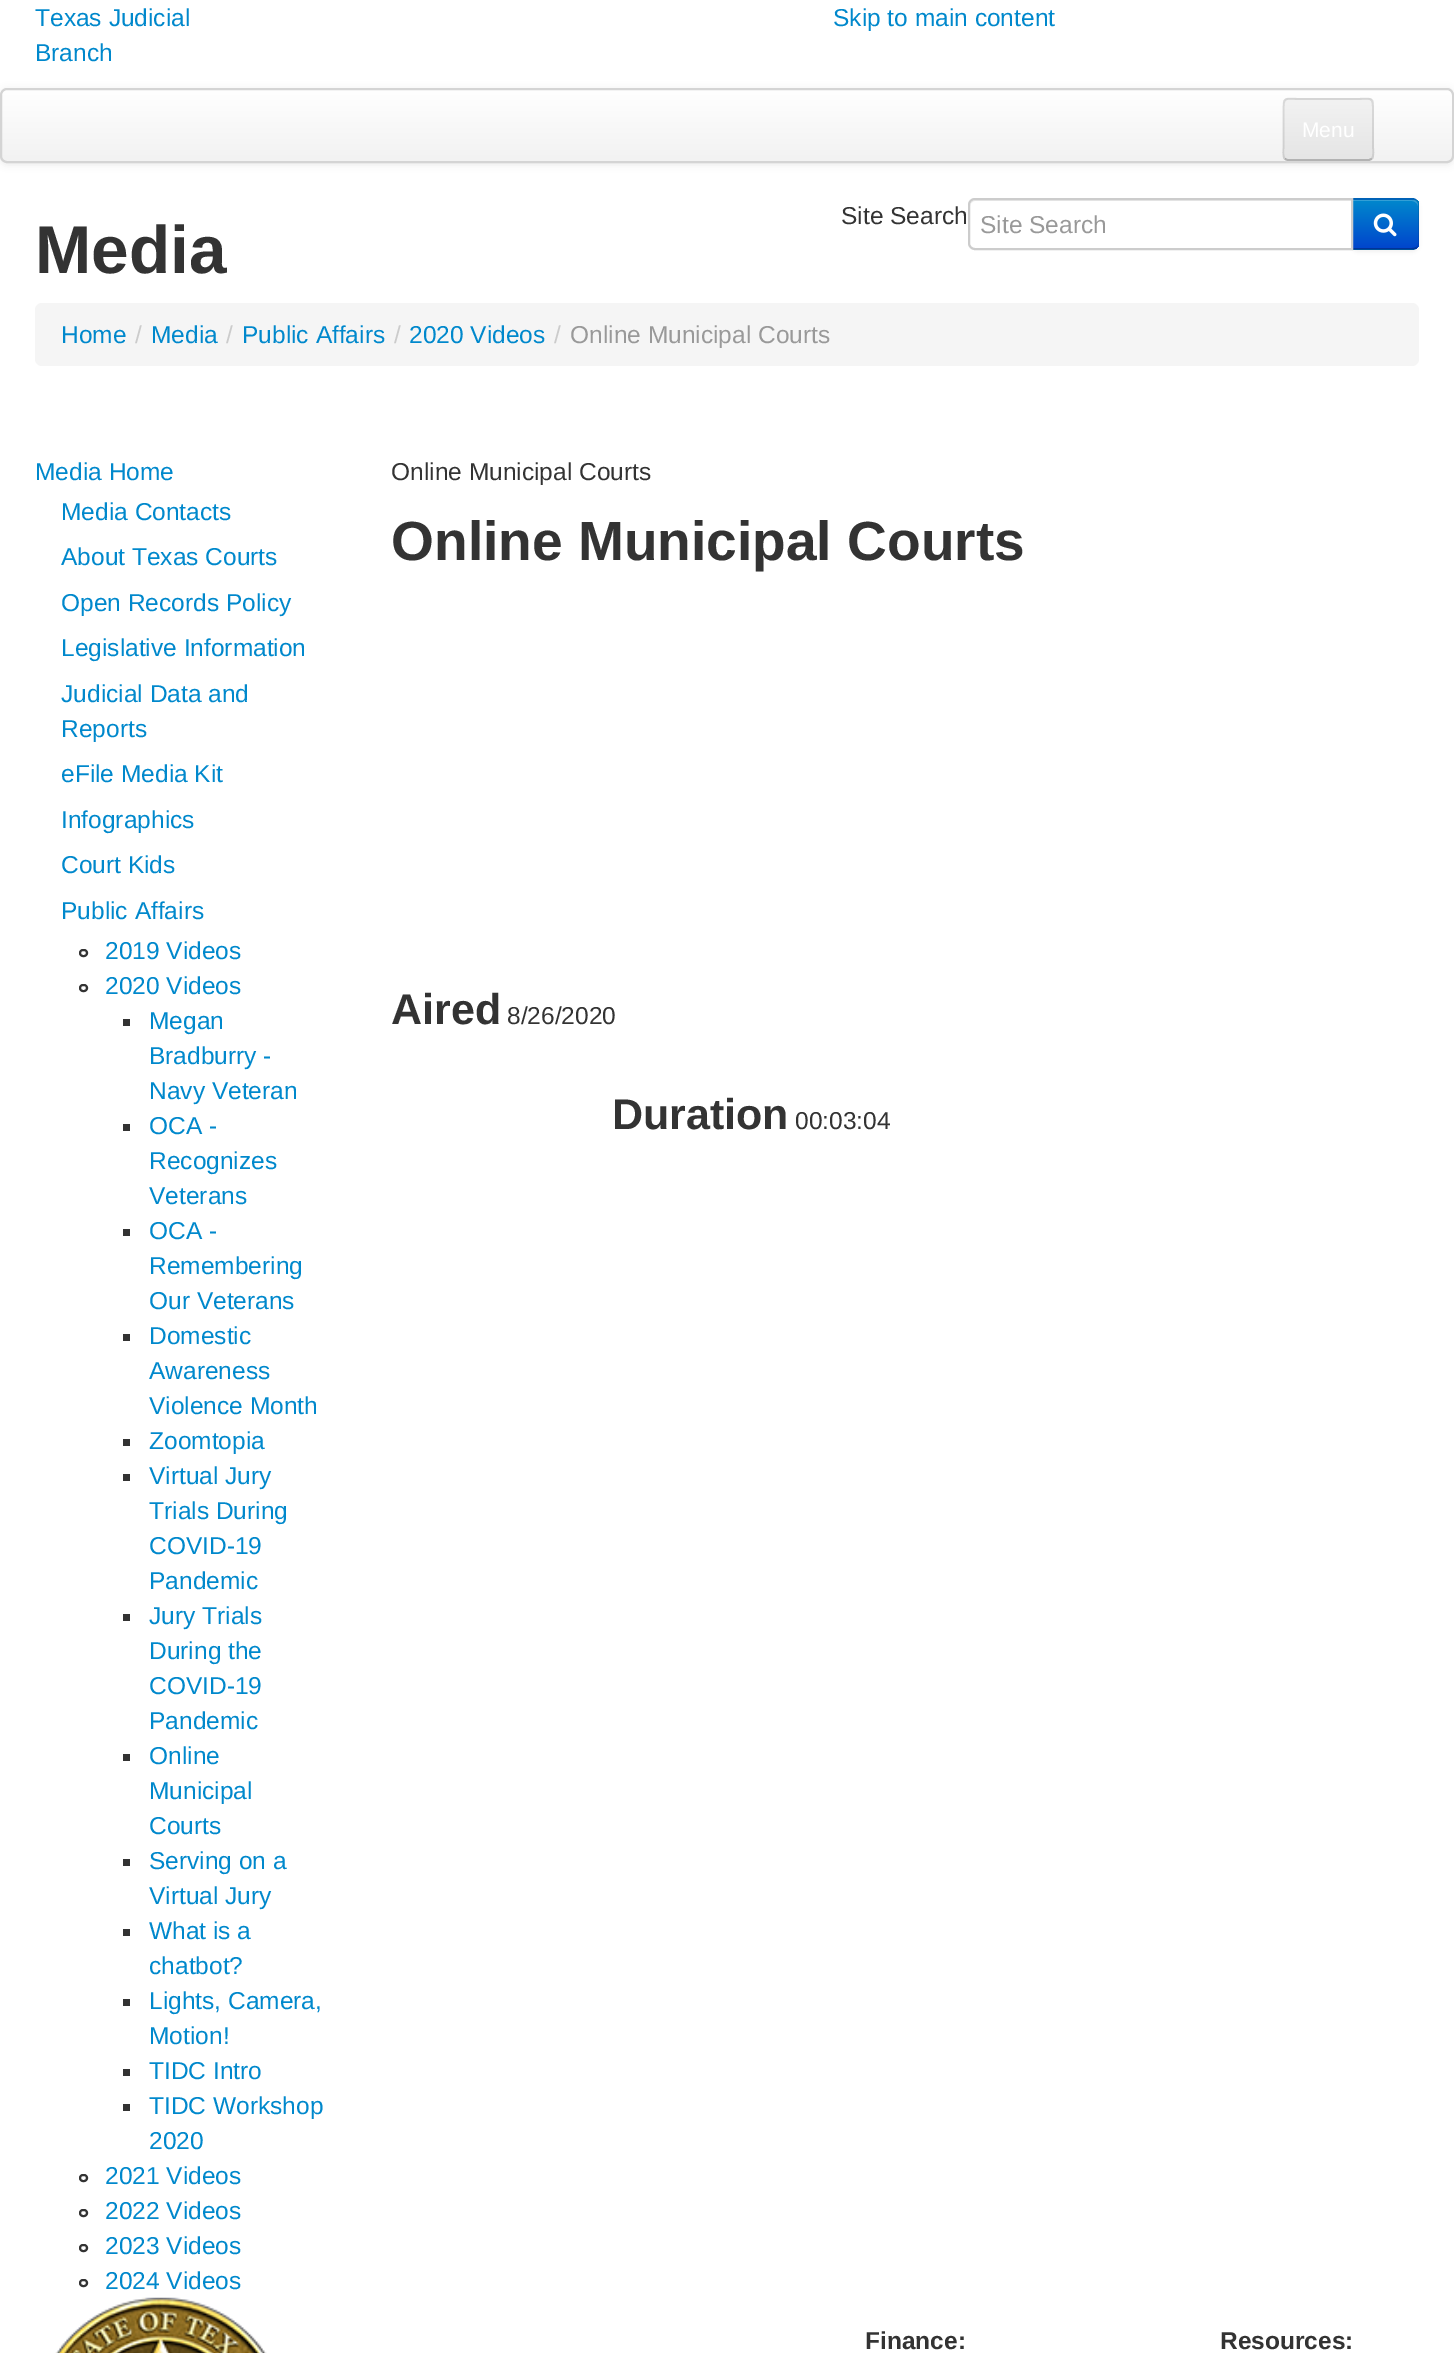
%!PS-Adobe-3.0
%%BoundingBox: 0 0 1454 2353
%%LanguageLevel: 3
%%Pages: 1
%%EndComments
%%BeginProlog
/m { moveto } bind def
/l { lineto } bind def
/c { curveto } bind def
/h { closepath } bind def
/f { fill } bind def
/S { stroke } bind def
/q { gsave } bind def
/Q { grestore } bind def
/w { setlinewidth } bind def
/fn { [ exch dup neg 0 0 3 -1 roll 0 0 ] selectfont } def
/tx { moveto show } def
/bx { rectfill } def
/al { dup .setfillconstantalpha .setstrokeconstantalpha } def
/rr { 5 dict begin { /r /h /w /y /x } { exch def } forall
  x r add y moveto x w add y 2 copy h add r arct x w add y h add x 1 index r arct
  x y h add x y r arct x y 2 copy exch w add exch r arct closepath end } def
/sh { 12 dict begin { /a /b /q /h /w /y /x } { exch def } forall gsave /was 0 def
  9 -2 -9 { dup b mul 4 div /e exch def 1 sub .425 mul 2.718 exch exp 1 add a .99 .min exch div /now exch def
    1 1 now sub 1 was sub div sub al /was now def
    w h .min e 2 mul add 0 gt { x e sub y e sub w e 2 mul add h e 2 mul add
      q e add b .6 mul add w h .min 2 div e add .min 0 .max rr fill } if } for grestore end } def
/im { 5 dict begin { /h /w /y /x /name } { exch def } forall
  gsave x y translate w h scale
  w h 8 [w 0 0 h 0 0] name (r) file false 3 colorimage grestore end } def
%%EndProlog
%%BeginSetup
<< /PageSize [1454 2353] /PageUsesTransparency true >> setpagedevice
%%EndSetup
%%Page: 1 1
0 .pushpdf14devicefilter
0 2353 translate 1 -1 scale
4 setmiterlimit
1 setgray
0 0 1454 2353 bx
/LiberationSans-Regular 24.5 fn
0 0.533 0.8 setrgbcolor
(Texas Judicial) 35 26 tx
(Branch) 35 61 tx
(Skip to main content) 833 26 tx
0 setgray
0 89 1454 76 7 3.5 0.07 sh
q
0 88 1454 75 7 rr clip newpath
q 0 89 m 1454 89 l 1454 161 l 0 161 l h clip newpath
<< /ShadingType 2 /ColorSpace /DeviceRGB /Coords [727 89 727 161] /Extend [true true] /Function << /FunctionType 2 /Domain [0 1] /C0 [1 1 1] /C1 [0.949 0.949 0.949] /N 1 >> >> shfill Q
Q
0.831 setgray
2 w
1 89 1452 73 6 rr S
0.07 al
1 setgray
1283 157 m 1283 166 1297 163 1302 163 c 1356 163 l 1379 163 1374 164 1374 140 c 1374 103 l 1374 156 l 1374 159 1371 161 1368 161 c 1288 161 l 1286 161 1284 159 1283 157 c h f
1 al
0.929 setgray
1283 98 91 63 5 rr f
q
1283 98 91 63 5 rr clip newpath
q 1283 100 m 1374 100 l 1374 159 l 1283 159 l h clip newpath
<< /ShadingType 2 /ColorSpace /DeviceRGB /Coords [1328 100 1328 159] /Extend [true true] /Function << /FunctionType 2 /Domain [0 1] /C0 [0.949 0.949 0.949] /C1 [0.898 0.898 0.898] /N 1 >> >> shfill Q
Q
0.25 al
0 setgray
1.8 w
1371.5 159 m 1369 160 l 1287.5 160 l 1285 159 l S
0.1 al
1285 159 m 1282 156 1283.5 149 1283.5 147 c 1283.5 112 l 1283.5 95.5 1284 99 1301.5 99 c 1355 99 l 1372.5 99 1373 95.5 1373 112 c 1373 147 l 1373 149 1374.5 156 1371.5 159 c S
/LiberationSans-Regular 21 fn
1 al
1 setgray
(Menu) 1302 137 tx
/LiberationSans-Regular 24.5 fn
0.2 setgray
(Site Search) 841 224 tx
0 setgray
1351 200 68 52 7 2 0.05 sh
0 0.427 0.8 setrgbcolor
1351 198 m 1412 198 l 1416 198 1419 201 1419 205 c 1419 243 l 1419 247 1416 250 1412 250 c 1351 250 l h f
q
1351 198 m 1412 198 l 1416 198 1419 201 1419 205 c 1419 243 l 1419 247 1416 250 1412 250 c 1351 250 l h clip newpath
q 1353 200 m 1419 200 l 1419 249 l 1353 249 l h clip newpath
<< /ShadingType 2 /ColorSpace /DeviceRGB /Coords [1385 200 1385 249] /Extend [true true] /Function << /FunctionType 2 /Domain [0 1] /C0 [0 0.533 0.8] /C1 [0 0.267 0.8] /N 1 >> >> shfill Q
Q
0.2 al
1 setgray
1353 201 m 1412 201 l 1415 201 1418 204 1418 206 c 1418 205 l 1418 202 1416 200 1413 200 c 1353 200 l h f
0.1 al
0 setgray
1417 200 m 1416 199 1414 198 1412 198 c 1351 198 l 1353 200 l 1412 200 l 1413 200 1415 200 1416 201 c h f
1417 200 m 1418 201 1419 203 1419 205 c 1419 243 l 1419 245 1418 247 1417 248 c 1416 247 l 1417 246 1418 245 1418 243 c 1418 205 l 1418 203 1417 202 1416 201 c h f
0.25 al
1417 248 m 1416 249 1414 250 1412 250 c 1351 250 l 1353 248 l 1412 248 l 1413 248 1415 248 1416 247 c h f
1 al
1 setgray
975 198 m 1353 198 l 1353 250 l 975 250 l 971 250 968 247 968 243 c 968 205 l 968 201 971 198 975 198 c h f
0.925 setgray
975 201 m 1351 201 l 1351 200 l 975 200 l 972 200 970 203 970 206 c 970 204 972 201 975 201 c h f
0.8 setgray
2 w
975 199 m 1352 199 l 1352 249 l 975 249 l 971.5 249 969 246.5 969 243 c 969 205 l 969 201.5 971.5 199 975 199 c h S
0.6 setgray
(Site Search) 980 233 tx
(image0.raw) 1373 213 24 24 im
/LiberationSans-Bold 67.5 fn
0.2 setgray
(Media) 35 273 tx
0.961 setgray
35 303 1384 63 7 rr f
/LiberationSans-Regular 24.5 fn
0 0.533 0.8 setrgbcolor
(Home) 61 343 tx
0.8 setgray
(/) 135 343 tx
0 0.533 0.8 setrgbcolor
(Media) 151 343 tx
0.8 setgray
(/) 226 343 tx
0 0.533 0.8 setrgbcolor
(Public Affairs) 242 343 tx
0.8 setgray
(/) 394 343 tx
0 0.533 0.8 setrgbcolor
(2020 Videos) 409 343 tx
0.8 setgray
(/) 554 343 tx
0.6 setgray
(Online Municipal Courts) 570 343 tx
0 0.533 0.8 setrgbcolor
(Media Home) 35 480 tx
(Media Contacts) 61 520 tx
(About Texas Courts) 61 565 tx
(Open Records Policy) 61 611 tx
(Legislative Information) 61 656 tx
(Judicial Data and) 61 702 tx
(Reports) 61 737 tx
(eFile Media Kit) 61 782 tx
(Infographics) 61 828 tx
(Court Kids) 61 873 tx
(Public Affairs) 61 919 tx
0.2 setgray
80 950 7 6 3 rr S
0 0.533 0.8 setrgbcolor
(2019 Videos) 105 959 tx
0.2 setgray
80 985 7 6 3 rr S
0 0.533 0.8 setrgbcolor
(2020 Videos) 105 994 tx
0.2 setgray
123 1019 7 7 bx
0 0.533 0.8 setrgbcolor
(Megan) 149 1029 tx
(Bradburry -) 149 1064 tx
(Navy Veteran) 149 1099 tx
0.2 setgray
123 1124 7 7 bx
0 0.533 0.8 setrgbcolor
(OCA -) 149 1134 tx
(Recognizes) 149 1169 tx
(Veterans) 149 1204 tx
0.2 setgray
123 1229 7 7 bx
0 0.533 0.8 setrgbcolor
(OCA -) 149 1239 tx
(Remembering) 149 1274 tx
(Our Veterans) 149 1309 tx
0.2 setgray
123 1334 7 7 bx
0 0.533 0.8 setrgbcolor
(Domestic) 149 1344 tx
(Awareness) 149 1379 tx
(Violence Month) 149 1414 tx
0.2 setgray
123 1439 7 7 bx
0 0.533 0.8 setrgbcolor
(Zoomtopia) 149 1449 tx
0.2 setgray
123 1474 7 7 bx
0 0.533 0.8 setrgbcolor
(Virtual Jury) 149 1484 tx
(Trials During) 149 1519 tx
(COVID-19) 149 1554 tx
(Pandemic) 149 1589 tx
0.2 setgray
123 1614 7 7 bx
0 0.533 0.8 setrgbcolor
(Jury Trials) 149 1624 tx
(During the) 149 1659 tx
(COVID-19) 149 1694 tx
(Pandemic) 149 1729 tx
0.2 setgray
123 1754 7 7 bx
0 0.533 0.8 setrgbcolor
(Online) 149 1764 tx
(Municipal) 149 1799 tx
(Courts) 149 1834 tx
0.2 setgray
123 1859 7 7 bx
0 0.533 0.8 setrgbcolor
(Serving on a) 149 1869 tx
(Virtual Jury) 149 1904 tx
0.2 setgray
123 1929 7 7 bx
0 0.533 0.8 setrgbcolor
(What is a) 149 1939 tx
(chatbot?) 149 1974 tx
0.2 setgray
123 1999 7 7 bx
0 0.533 0.8 setrgbcolor
(Lights, Camera,) 149 2009 tx
(Motion!) 149 2044 tx
0.2 setgray
123 2069 7 7 bx
0 0.533 0.8 setrgbcolor
(TIDC Intro) 149 2079 tx
0.2 setgray
123 2104 7 7 bx
0 0.533 0.8 setrgbcolor
(TIDC Workshop) 149 2114 tx
(2020) 149 2149 tx
0.2 setgray
80 2175 7 6 3 rr S
0 0.533 0.8 setrgbcolor
(2021 Videos) 105 2184 tx
0.2 setgray
80 2210 7 6 3 rr S
0 0.533 0.8 setrgbcolor
(2022 Videos) 105 2219 tx
0.2 setgray
80 2245 7 6 3 rr S
0 0.533 0.8 setrgbcolor
(2023 Videos) 105 2254 tx
0.2 setgray
80 2280 7 6 3 rr S
0 0.533 0.8 setrgbcolor
(2024 Videos) 105 2289 tx
0.2 setgray
(Online Municipal Courts) 391 480 tx
/LiberationSans-Bold 55.1 fn
(Online Municipal Courts) 391 560 tx
/LiberationSans-Bold 43 fn
(Aired) 391 1024 tx
/LiberationSans-Regular 24.5 fn
(8/26/2020) 507 1024 tx
/LiberationSans-Bold 43 fn
(Duration) 612 1129 tx
/LiberationSans-Regular 24.5 fn
(00:03:04) 795 1129 tx
(image1.raw) 55 2297 212 56 im
/LiberationSans-Bold 24.5 fn
(Finance:) 865 2349 tx
(Resources:) 1220 2349 tx
.poppdf14devicefilter showpage
%%EOF
